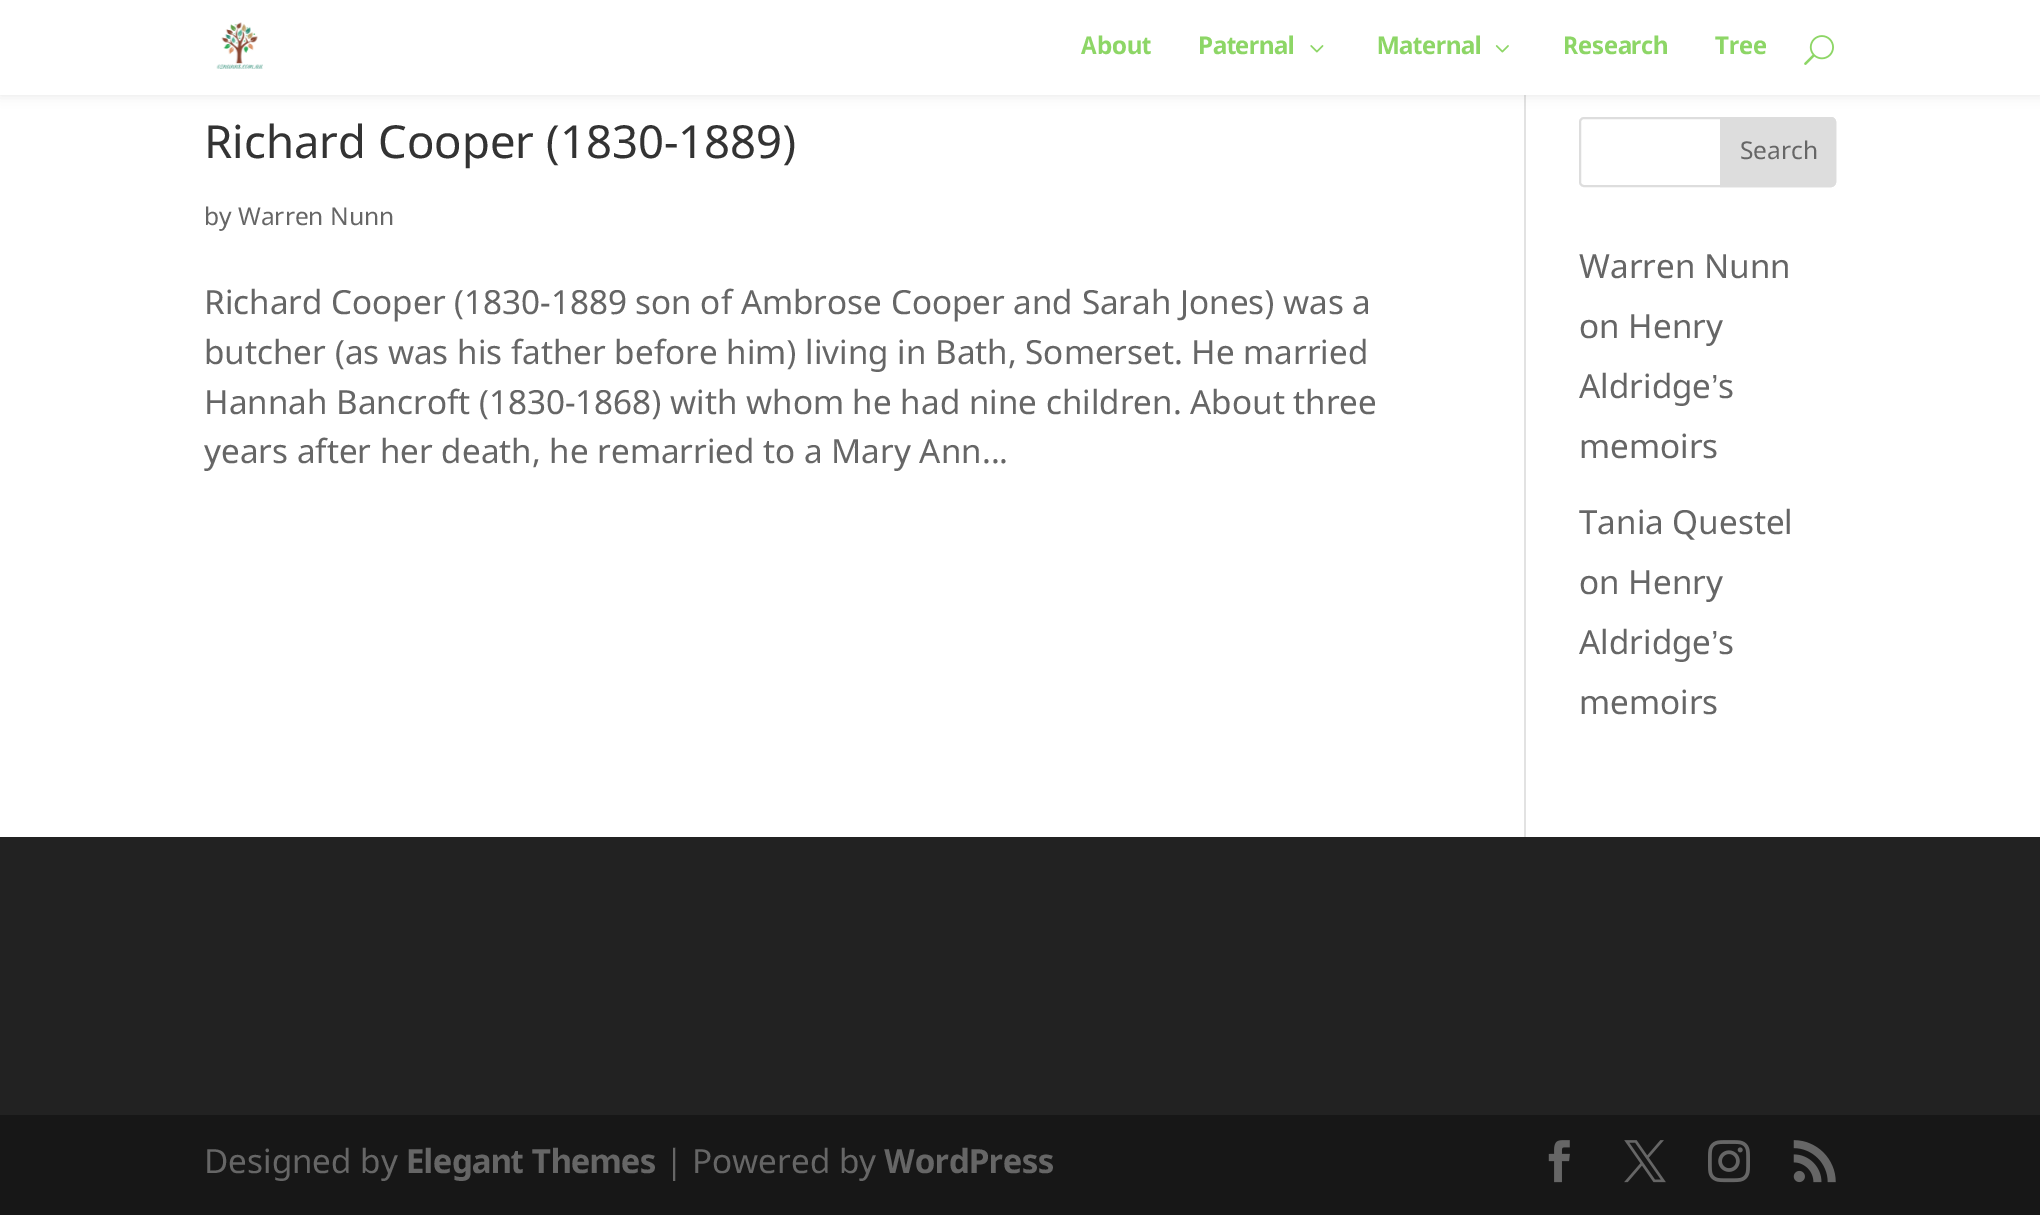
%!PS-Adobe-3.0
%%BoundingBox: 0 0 2040 1215
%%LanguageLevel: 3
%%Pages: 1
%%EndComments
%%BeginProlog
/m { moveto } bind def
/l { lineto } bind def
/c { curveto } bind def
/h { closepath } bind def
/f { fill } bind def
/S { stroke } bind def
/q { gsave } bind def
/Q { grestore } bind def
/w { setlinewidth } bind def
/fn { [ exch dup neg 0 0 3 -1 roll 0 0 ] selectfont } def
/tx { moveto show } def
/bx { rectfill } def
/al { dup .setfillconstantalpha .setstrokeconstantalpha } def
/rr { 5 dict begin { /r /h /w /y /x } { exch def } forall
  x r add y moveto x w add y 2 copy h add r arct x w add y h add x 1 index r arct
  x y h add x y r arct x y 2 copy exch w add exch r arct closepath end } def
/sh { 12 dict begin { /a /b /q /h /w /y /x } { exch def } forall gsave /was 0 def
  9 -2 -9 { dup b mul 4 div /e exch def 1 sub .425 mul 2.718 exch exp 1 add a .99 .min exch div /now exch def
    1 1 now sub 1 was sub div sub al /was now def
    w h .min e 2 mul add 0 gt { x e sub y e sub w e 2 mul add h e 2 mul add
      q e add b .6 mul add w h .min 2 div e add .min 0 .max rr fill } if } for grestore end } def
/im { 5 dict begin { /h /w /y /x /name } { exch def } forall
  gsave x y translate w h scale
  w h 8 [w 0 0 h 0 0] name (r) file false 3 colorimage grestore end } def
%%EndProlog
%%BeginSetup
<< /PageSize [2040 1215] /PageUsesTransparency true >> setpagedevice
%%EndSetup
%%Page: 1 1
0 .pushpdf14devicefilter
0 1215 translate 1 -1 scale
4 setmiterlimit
1 setgray
0 0 2040 1215 bx
0.886 setgray
1524 95 2 742 bx
0 setgray
0 0 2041 95 0 6 0.1 sh
1 setgray
0 0 2040 95 bx
(image0.raw) 216 22 47 47 im
/Nokora-Bold 24.5 fn
0.553 0.839 0.4 setrgbcolor
(About) 1081 54 tx
(Paternal) 1198 54 tx
(image1.raw) 1310 45 14 8 im
(Maternal) 1377 54 tx
(image2.raw) 1495 45 14 8 im
(Research) 1563 54 tx
(Tree) 1715 54 tx
(image3.raw) 1804 35 30 30 im
/Nokora-Regular 45.5 fn
0.2 setgray
(Richard Cooper \(1830-1889\)) 204 158 tx
/Nokora-Regular 24.5 fn
0.4 setgray
(by Warren Nunn) 204 225 tx
/Nokora-Regular 33.25 fn
(Richard Cooper \(1830-1889 son of Ambrose Cooper and Sarah Jones\) was a) 204 314 tx
(butcher \(as was his father before him\) living in Bath, Somerset. He married) 204 364 tx
(Hannah Bancroft \(1830-1868\) with whom he had nine children. About three) 204 414 tx
(years after her death, he remarried to a Mary Ann...) 204 463 tx
0.867 setgray
2 w
1580 118 255 68 4 rr S
1721 118 m 1831 118 l 1833 118 1835 120 1835 122 c 1835 182 l 1835 184 1833 186 1831 186 c 1721 186 l h q f Q
S
/Nokora-Regular 24.5 fn
0.4 setgray
(Search) 1740 159 tx
/Nokora-Regular 33.25 fn
(Warren Nunn) 1579 278 tx
(on Henry) 1579 338 tx
(Aldridge) 1579 398 tx
/LiberationSans-Regular 33.25 fn
(’) 1711 398 tx
/Nokora-Regular 33.25 fn
(s) 1718 398 tx
(memoirs) 1579 458 tx
(Tania Questel) 1579 534 tx
(on Henry) 1579 594 tx
(Aldridge) 1579 654 tx
/LiberationSans-Regular 33.25 fn
(’) 1711 654 tx
/Nokora-Regular 33.25 fn
(s) 1718 654 tx
(memoirs) 1579 714 tx
0.133 setgray
0 837 2040 278 bx
0.09 setgray
0 1115 2040 100 bx
0.4 setgray
(Designed by) 204 1173 tx
/Nokora-Bold 33.25 fn
(Elegant Themes) 406 1173 tx
/Nokora-Regular 33.25 fn
(| Powered by) 665 1173 tx
/Nokora-Bold 33.25 fn
(WordPress) 884 1173 tx
(image4.raw) 1548 1140 22 43 im
(image5.raw) 1624 1140 42 43 im
(image6.raw) 1708 1140 42 43 im
(image7.raw) 1793 1140 43 43 im
.poppdf14devicefilter showpage
%%EOF
